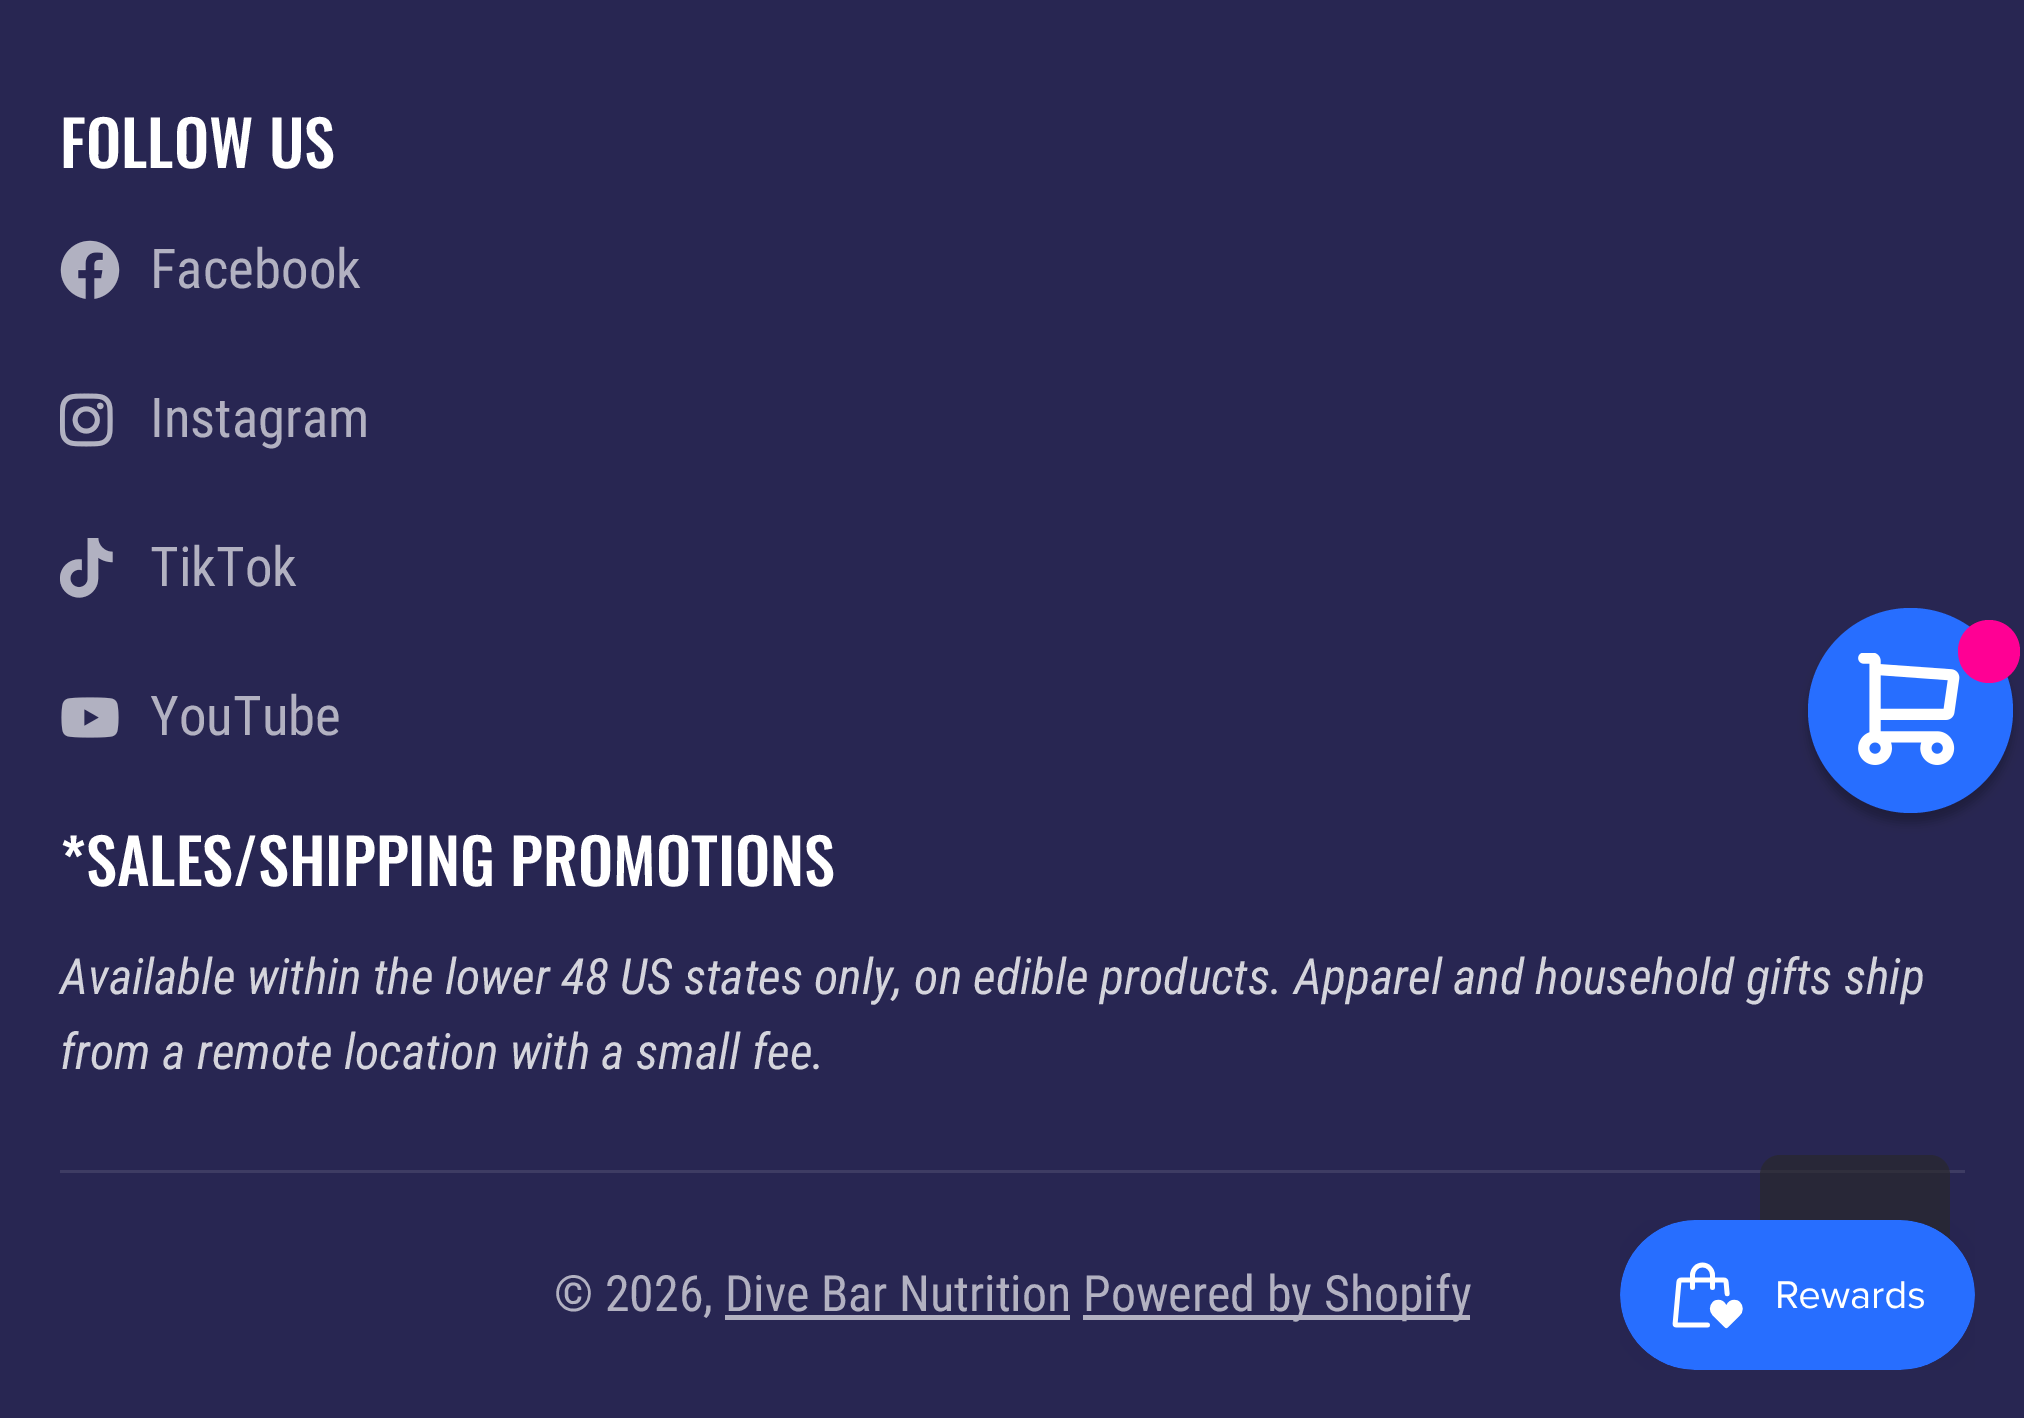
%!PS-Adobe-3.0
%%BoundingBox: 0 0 2024 1418
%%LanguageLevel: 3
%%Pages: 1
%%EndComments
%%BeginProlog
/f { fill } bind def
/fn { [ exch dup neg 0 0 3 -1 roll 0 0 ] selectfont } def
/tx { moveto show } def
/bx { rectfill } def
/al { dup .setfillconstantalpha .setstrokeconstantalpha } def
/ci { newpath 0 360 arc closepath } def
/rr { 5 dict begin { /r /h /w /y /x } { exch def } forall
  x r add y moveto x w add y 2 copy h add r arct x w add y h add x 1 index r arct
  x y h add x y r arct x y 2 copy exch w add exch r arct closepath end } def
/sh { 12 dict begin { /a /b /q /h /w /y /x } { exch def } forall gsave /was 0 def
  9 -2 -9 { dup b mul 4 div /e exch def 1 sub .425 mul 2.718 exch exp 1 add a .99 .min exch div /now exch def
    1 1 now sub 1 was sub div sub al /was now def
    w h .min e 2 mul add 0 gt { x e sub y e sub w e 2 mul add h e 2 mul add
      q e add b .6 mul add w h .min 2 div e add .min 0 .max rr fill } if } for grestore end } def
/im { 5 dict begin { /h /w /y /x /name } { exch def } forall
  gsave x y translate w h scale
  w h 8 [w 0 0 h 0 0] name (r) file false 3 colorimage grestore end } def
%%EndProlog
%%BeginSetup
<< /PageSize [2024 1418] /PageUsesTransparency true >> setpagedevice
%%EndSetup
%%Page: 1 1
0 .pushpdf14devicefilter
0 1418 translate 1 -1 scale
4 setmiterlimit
0.157 0.149 0.322 setrgbcolor
0 0 2024 1418 bx
/Oswald-Medium 62.5 fn
1 setgray
(FOLLOW US) 60 168 tx
(image0.raw) 60 240 60 59 im
/RobotoCondensed-Regular 55 fn
0.698 0.694 0.757 setrgbcolor
(Facebook) 150 288 tx
(image1.raw) 60 393 53 54 im
(Instagram) 150 437 tx
(image2.raw) 60 538 53 60 im
(TikTok) 150 586 tx
(image3.raw) 61 697 58 41 im
(YouTube) 150 735 tx
/Oswald-Medium 62.5 fn
1 setgray
(*SALES/SHIPPING PROMOTIONS) 60 886 tx
/RobotoCondensed-Italic 50 fn
0.831 0.831 0.863 setrgbcolor
(Available within the lower 48 US states only, on edible products. Apparel and household gifts ship) 60 994 tx
(from a remote location with a small fee.) 60 1069 tx
0.243 0.235 0.388 setrgbcolor
60 1170 1905 3 bx
/RobotoCondensed-Regular 50 fn
0.698 0.694 0.757 setrgbcolor
(© 2026, Dive Bar Nutrition) 554 1311 tx
1083 1315 387 5 bx
(Powered by Shopify) 1083 1311 tx
725 1315 345 5 bx
0 setgray
1808 618 205 205 102.5 5 0.25 sh
0.153 0.431 1 setrgbcolor
1910.5 710.5 102.5 ci f
1 0 0.58 setrgbcolor
1958 620 62 63 31 rr f
(image4.raw) 1858 653 102 112 im
0.64 al
0.157 setgray
1760 1155 190 190 20 rr f
1 al
(image5.raw) 1620 1220 355 150 im
.poppdf14devicefilter showpage
%%EOF
